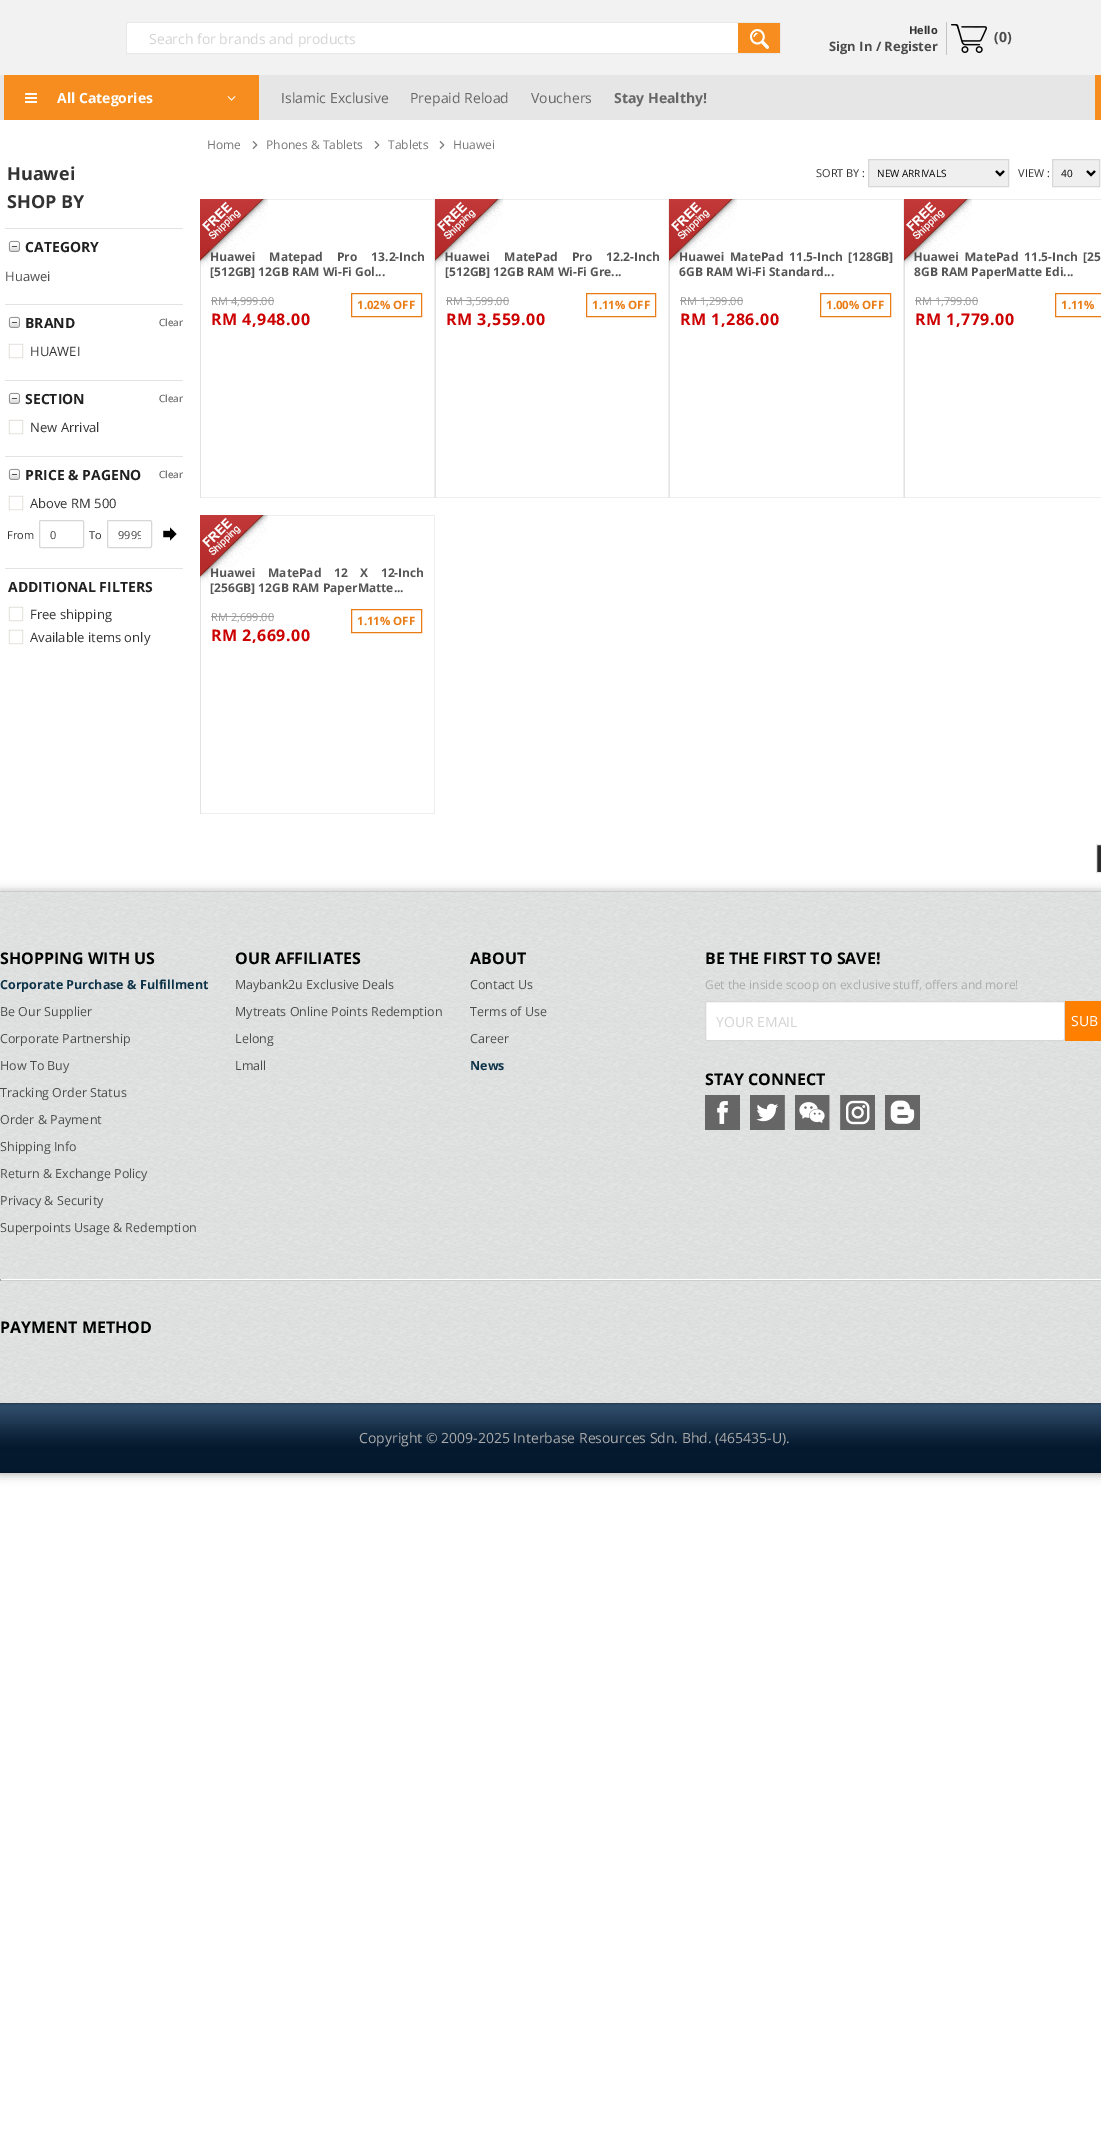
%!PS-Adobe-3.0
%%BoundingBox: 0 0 1101 2155
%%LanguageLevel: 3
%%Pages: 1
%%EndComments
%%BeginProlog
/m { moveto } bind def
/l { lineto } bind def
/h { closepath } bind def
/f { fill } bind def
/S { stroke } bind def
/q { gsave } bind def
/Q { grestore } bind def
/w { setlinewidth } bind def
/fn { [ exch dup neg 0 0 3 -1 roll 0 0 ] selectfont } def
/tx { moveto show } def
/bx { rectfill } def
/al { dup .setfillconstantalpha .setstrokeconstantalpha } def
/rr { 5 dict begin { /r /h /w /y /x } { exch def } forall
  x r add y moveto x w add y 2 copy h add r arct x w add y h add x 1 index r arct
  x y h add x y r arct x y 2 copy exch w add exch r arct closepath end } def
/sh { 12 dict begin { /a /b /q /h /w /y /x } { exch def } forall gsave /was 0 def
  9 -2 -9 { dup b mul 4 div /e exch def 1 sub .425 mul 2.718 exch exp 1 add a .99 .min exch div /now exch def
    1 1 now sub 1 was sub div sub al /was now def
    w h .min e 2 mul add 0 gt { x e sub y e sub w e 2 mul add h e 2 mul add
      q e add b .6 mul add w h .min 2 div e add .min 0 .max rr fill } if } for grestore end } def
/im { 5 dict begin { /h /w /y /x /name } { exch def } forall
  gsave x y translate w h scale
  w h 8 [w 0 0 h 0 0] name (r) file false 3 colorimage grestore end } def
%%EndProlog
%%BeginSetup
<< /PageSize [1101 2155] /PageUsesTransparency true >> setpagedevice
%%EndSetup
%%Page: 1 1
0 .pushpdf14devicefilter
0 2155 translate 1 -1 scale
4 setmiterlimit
1 setgray
0 0 1101 2155 bx
0.949 setgray
0 0 1101 75 bx
0.914 setgray
126.5 22.5 654 31 rectstroke
1 setgray
127 23 611 30 2 rr f
/OpenSans-Regular 14 fn
0.827 setgray
(Search for brands and products) 149 44 tx
0.965 0.553 0.118 setrgbcolor
738 23 42 30 bx
(image0.raw) 750 29 19 20 im
0.765 setgray
946 22 1 33 bx
/OpenSans-Bold 11 fn
0.2 setgray
(Hello) 909 34 tx
/OpenSans-Bold 13 fn
0.294 setgray
(Sign In / Register) 829 51 tx
(image1.raw) 951 24 36 29 im
/OpenSans-Bold 14 fn
(\(0\)) 994 42 tx
0.902 setgray
0 75 1095 45 bx
0.965 0.553 0.118 setrgbcolor
4 75 255 45 bx
(image2.raw) 25 93 12 10 im
1 setgray
(All Categories) 57 103 tx
(image3.raw) 227 96 9 5 im
/OpenSans-Regular 14 fn
0.4 setgray
(Islamic Exclusive) 281 103 tx
(Prepaid Reload) 410 103 tx
(Vouchers) 531 103 tx
/OpenSans-Bold 14 fn
(Stay Healthy!) 614 103 tx
0.965 0.553 0.118 setrgbcolor
1095 75 6 45 bx
/OpenSans-Bold 18 fn
0.2 setgray
(Huawei) 7 180 tx
(SHOP BY) 7 208 tx
0.89 setgray
5 228 178 1 bx
(image4.raw) 8 240 12 12 im
/OpenSans-Bold 14 fn
0.129 setgray
(CATEGORY) 25 252 tx
/OpenSans-Regular 13 fn
0.294 setgray
(Huawei) 5 281 tx
0.89 setgray
5 304 178 1 bx
(image4.raw) 8 316 12 12 im
/OpenSans-Bold 14 fn
0.129 setgray
(BRAND) 25 328 tx
/OpenSans-Regular 10 fn
0.294 setgray
(Clear) 159 326 tx
(image5.raw) 8 343 16 16 im
/OpenSans-Regular 13 fn
0.2 setgray
(HUAWEI) 30 356 tx
0.89 setgray
5 380 178 1 bx
(image4.raw) 8 392 12 12 im
/OpenSans-Bold 14 fn
0.129 setgray
(SECTION) 25 404 tx
/OpenSans-Regular 10 fn
0.294 setgray
(Clear) 159 402 tx
(image6.raw) 8 419 16 16 im
/OpenSans-Regular 13 fn
0.2 setgray
(New Arrival) 30 432 tx
0.89 setgray
5 456 178 1 bx
(image4.raw) 8 468 12 12 im
/OpenSans-Bold 14 fn
0.129 setgray
(PRICE & PAGENO) 25 480 tx
/OpenSans-Regular 10 fn
0.294 setgray
(Clear) 159 478 tx
(image7.raw) 8 495 16 16 im
/OpenSans-Regular 13 fn
0.2 setgray
(Above RM 500) 30 508 tx
/OpenSans-Regular 11 fn
(From) 7 539 tx
0.843 setgray
39.5 520.5 44 27 1.5 rr S
0.267 setgray
(0) 50 539 tx
0.2 setgray
(To) 89 539 tx
0.843 setgray
107.5 520.5 44 27 1.5 rr S
q
118 527 23 15 rectclip
0.267 setgray
(9999) 118 539 tx
Q
(image8.raw) 163 527 14 14 im
0.89 setgray
5 568 178 1 bx
/OpenSans-Bold 14 fn
0.129 setgray
(ADDITIONAL FILTERS) 8 592 tx
(image5.raw) 8 606 16 16 im
/OpenSans-Regular 13 fn
0.2 setgray
(Free shipping) 30 619 tx
(image5.raw) 8 629 16 16 im
(Available items only) 30 642 tx
/OpenSans-Regular 12 fn
0.467 setgray
(Home) 207 149 tx
(image9.raw) 252 141 6 8 im
(Phones & Tablets) 266 149 tx
(image9.raw) 374 141 6 8 im
(Tablets) 388 149 tx
(image9.raw) 439 141 6 8 im
(Huawei) 453 149 tx
/OpenSans-Regular 11 fn
0.2 setgray
(SORT BY :) 816 177 tx
0.937 setgray
868.5 159.5 m 1008.5 159.5 l 1008.5 186.5 l 868.5 186.5 l h q f Q
0.843 setgray
S
0 setgray
2 w
996 171 m 1000 175 l 1004 171 l S
/OpenSans-Regular 10 fn
(NEW ARRIVALS) 877 177 tx
/OpenSans-Regular 11 fn
0.2 setgray
(VIEW :) 1018 177 tx
0.937 setgray
1052.5 159.5 m 1099.5 159.5 l 1099.5 186.5 l 1052.5 186.5 l h q f Q
0.843 setgray
1 w
S
0 setgray
2 w
1087 171 m 1091 175 l 1095 171 l S
/OpenSans-Regular 10 fn
(40) 1061 177 tx
0.933 setgray
262 199 173 1 bx
434 199 1 299 bx
200 497 235 1 bx
0.89 setgray
200 259 1 239 bx
/OpenSans-Bold 12 fn
0.333 setgray
210 261 m 11 0 32 (Huawei Matepad Pro 13.2-Inch) widthshow
([512GB] 12GB RAM Wi-Fi Gol...) 210 276 tx
(image10.raw) 200 199 68 68 im
/OpenSans-Regular 11 fn
0.6 setgray
(RM 4,999.00) 211 305 tx
211 300 63 1 bx
0.914 0.486 0.082 setrgbcolor
1 w
351.5 293.5 70 23 rectstroke
/OpenSans-Bold 11.5 fn
(1.02% OFF) 357 309 tx
/OpenSans-Bold 16 fn
0.8 0 0 setrgbcolor
211 325 m 0.5 0 (RM 4,948.00) ashow
0.933 setgray
497 199 172 1 bx
668 199 1 299 bx
435 497 234 1 bx
0.89 setgray
435 259 1 239 bx
/OpenSans-Bold 12 fn
0.333 setgray
445 261 m 11 0 32 (Huawei MatePad Pro 12.2-Inch) widthshow
([512GB] 12GB RAM Wi-Fi Gre...) 445 276 tx
(image11.raw) 435 199 68 68 im
/OpenSans-Regular 11 fn
0.6 setgray
(RM 3,599.00) 446 305 tx
446 300 63 1 bx
0.914 0.486 0.082 setrgbcolor
586.5 293.5 69 23 rectstroke
/OpenSans-Bold 11.5 fn
(1.11% OFF) 592 309 tx
/OpenSans-Bold 16 fn
0.8 0 0 setrgbcolor
446 325 m 0.5 0 (RM 3,559.00) ashow
0.933 setgray
731 199 173 1 bx
903 199 1 299 bx
669 497 432 1 bx
0.89 setgray
669 259 1 239 bx
/OpenSans-Bold 12 fn
0.333 setgray
679 261 m 2.5 0 32 (Huawei MatePad 11.5-Inch [128GB]) widthshow
(6GB RAM Wi-Fi Standard...) 679 276 tx
(image12.raw) 669 199 68 68 im
/OpenSans-Regular 11 fn
0.6 setgray
(RM 1,299.00) 680 305 tx
680 300 63 1 bx
0.914 0.486 0.082 setrgbcolor
820.5 293.5 70 23 rectstroke
/OpenSans-Bold 11.5 fn
(1.00% OFF) 826 309 tx
/OpenSans-Bold 16 fn
0.8 0 0 setrgbcolor
680 325 m 0.5 0 (RM 1,286.00) ashow
0.933 setgray
966 199 135 1 bx
0.89 setgray
904 259 1 239 bx
/OpenSans-Bold 12 fn
0.333 setgray
914 261 m 2.5 0 32 (Huawei MatePad 11.5-Inch [25) widthshow
(8GB RAM PaperMatte Edi...) 914 276 tx
(image13.raw) 904 199 68 68 im
/OpenSans-Regular 11 fn
0.6 setgray
(RM 1,799.00) 915 305 tx
915 300 63 1 bx
0.914 0.486 0.082 setrgbcolor
1055.5 293.5 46 23 rectstroke
/OpenSans-Bold 11.5 fn
(1.11%) 1061 309 tx
/OpenSans-Bold 16 fn
0.8 0 0 setrgbcolor
915 325 m 0.5 0 (RM 1,779.00) ashow
0.933 setgray
262 515 173 1 bx
434 515 1 299 bx
200 813 235 1 bx
0.89 setgray
200 575 1 239 bx
/OpenSans-Bold 12 fn
0.333 setgray
210 577 m 9.5 0 32 (Huawei MatePad 12 X 12-Inch) widthshow
(image10.raw) 200 515 68 68 im
([256GB] 12GB RAM PaperMatte...) 210 592 tx
/OpenSans-Regular 11 fn
0.6 setgray
(RM 2,699.00) 211 621 tx
211 616 63 1 bx
0.914 0.486 0.082 setrgbcolor
351.5 609.5 70 23 rectstroke
/OpenSans-Bold 11.5 fn
(1.11% OFF) 357 625 tx
/OpenSans-Bold 16 fn
0.8 0 0 setrgbcolor
211 641 m 0.5 0 (RM 2,669.00) ashow
0.169 setgray
1096.5 844.5 m 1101.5 844.5 l 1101.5 872.5 l 1096.5 872.5 l h q f Q
0.91 setgray
S
0.643 setgray
0 892 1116 582 0 5 1 sh
(image14.raw) 0 1403 1101 70 im
0.8 setgray
0 891 1101 1 bx
(image15.raw) 0 892 1101 511 im
0 setgray
(SHOPPING WITH US) 0 964 tx
/OpenSans-Bold 12.5 fn
0.051 0.196 0.278 setrgbcolor
(Corporate Purchase & Fulfillment) 0 989 tx
/OpenSans-Regular 12.5 fn
0.294 setgray
(Be Our Supplier) 0 1016 tx
(Corporate Partnership) 0 1043 tx
(How To Buy) 0 1070 tx
(Tracking Order Status) 0 1097 tx
(Order & Payment) 0 1124 tx
(Shipping Info) 0 1151 tx
(Return & Exchange Policy) 0 1178 tx
(Privacy & Security) 0 1205 tx
(Superpoints Usage & Redemption) 0 1232 tx
/OpenSans-Bold 16 fn
0 setgray
(OUR AFFILIATES) 235 964 tx
/OpenSans-Regular 12.5 fn
0.294 setgray
(Maybank2u Exclusive Deals) 235 989 tx
(Mytreats Online Points Redemption) 235 1016 tx
(Lelong) 235 1043 tx
(Lmall) 235 1070 tx
/OpenSans-Bold 16 fn
0 setgray
(ABOUT) 470 964 tx
/OpenSans-Regular 12.5 fn
0.294 setgray
(Contact Us) 470 989 tx
(Terms of Use) 470 1016 tx
(Career) 470 1043 tx
/OpenSans-Bold 12.5 fn
0.051 0.196 0.278 setrgbcolor
(News) 470 1070 tx
/OpenSans-Bold 16 fn
0 setgray
(BE THE FIRST TO SAVE!) 705 964 tx
/OpenSans-Regular 12 fn
0.667 setgray
(Get the inside scoop on exclusive stuff, offers and more!) 705 989 tx
1 setgray
705.5 1001.5 359 39 1.5 rr q f Q
0.843 setgray
S
/OpenSans-Regular 14 fn
0.827 setgray
(YOUR EMAIL) 716 1027 tx
1 0.498 0 setrgbcolor
1065 1001 36 40 bx
1 setgray
(SUB) 1071 1026 tx
/OpenSans-Bold 16 fn
0 setgray
(STAY CONNECT) 705 1085 tx
(image16.raw) 705 1095 35 35 im
(image17.raw) 750 1095 35 35 im
(image18.raw) 795 1095 35 35 im
(image19.raw) 840 1095 35 35 im
(image20.raw) 885 1095 35 35 im
1 setgray
0 1279 1101 1 bx
0.808 setgray
0 1280 1101 1 bx
0.624 setgray
0 1279 1 2 bx
0 setgray
(PAYMENT METHOD) 0 1333 tx
/OpenSans-Regular 14 fn
0.667 setgray
(Copyright © 2009-2025 Interbase Resources Sdn. Bhd. \(465435-U\).) 359 1443 tx
.poppdf14devicefilter showpage
%%EOF
